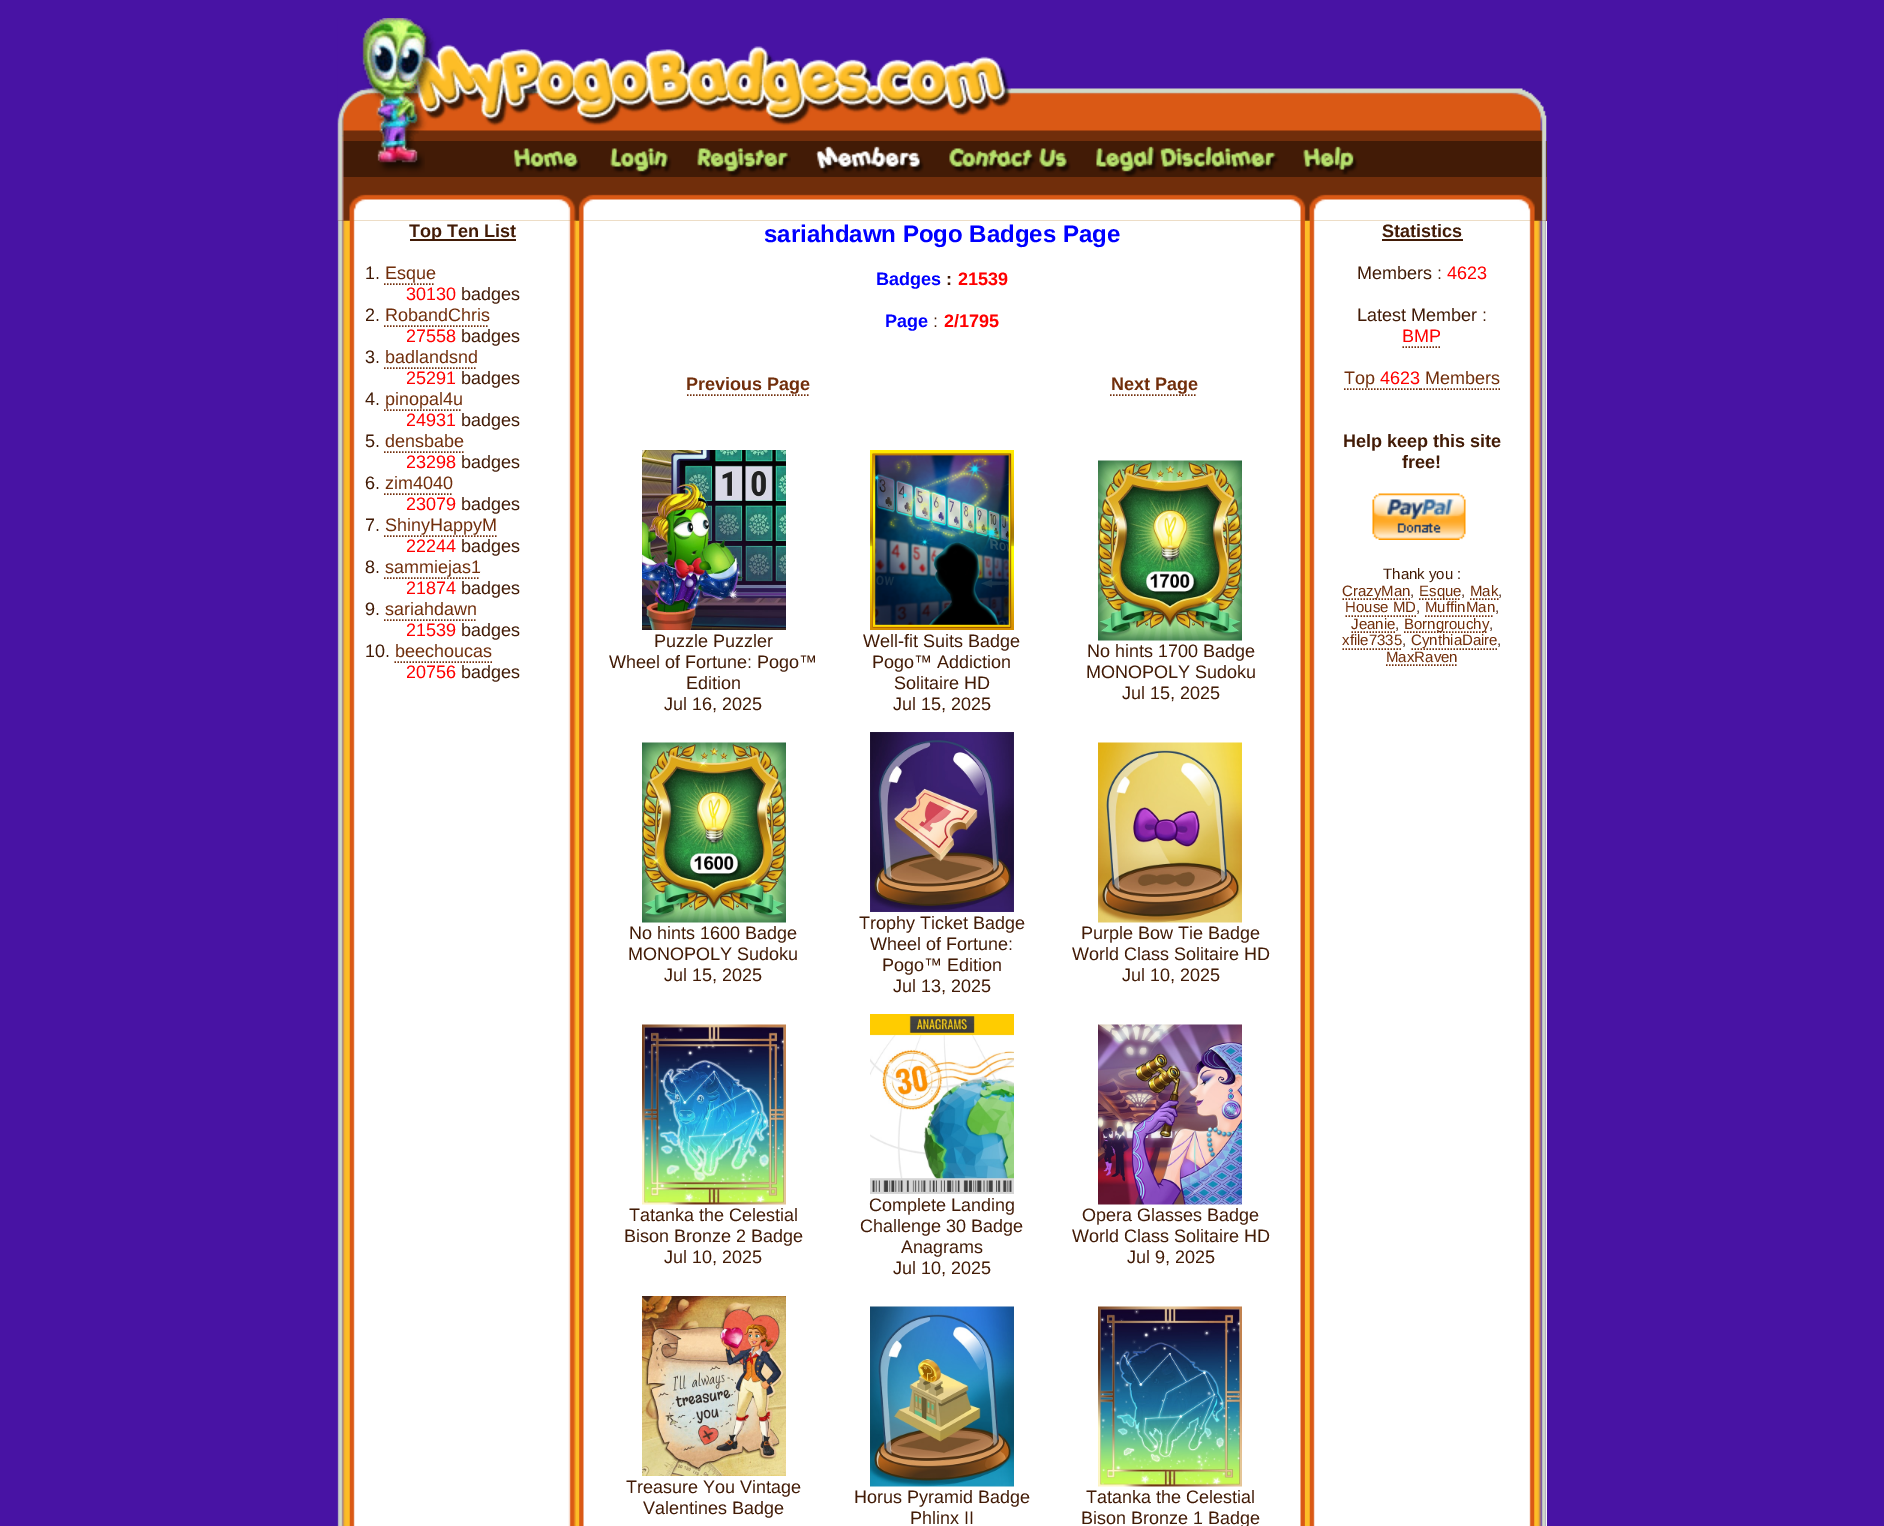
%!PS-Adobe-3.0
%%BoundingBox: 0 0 1884 1526
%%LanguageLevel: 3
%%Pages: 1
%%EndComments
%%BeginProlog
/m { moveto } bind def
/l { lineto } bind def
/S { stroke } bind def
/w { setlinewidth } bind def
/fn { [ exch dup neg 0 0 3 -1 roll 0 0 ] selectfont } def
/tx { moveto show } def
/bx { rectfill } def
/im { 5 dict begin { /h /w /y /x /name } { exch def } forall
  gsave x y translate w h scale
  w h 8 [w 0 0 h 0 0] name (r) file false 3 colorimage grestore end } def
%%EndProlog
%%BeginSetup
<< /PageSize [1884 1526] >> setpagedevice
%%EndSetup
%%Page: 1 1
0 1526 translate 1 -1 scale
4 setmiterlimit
0.282 0.075 0.643 setrgbcolor
0 0 1884 1526 bx
(image0.raw) 337 18 674 123 im
(image1.raw) 1011 88 536 53 im
0.259 0.106 0.024 setrgbcolor
425 141 1122 36 bx
(image2.raw) 337 141 88 36 im
(image3.raw) 513 148 68 25 im
(image4.raw) 610 148 62 29 im
(image5.raw) 697 148 94 29 im
(image6.raw) 815 146 109 28 im
(image7.raw) 949 148 122 25 im
(image8.raw) 1096 146 183 31 im
(image9.raw) 1303 146 55 29 im
(image10.raw) 1541 141 6 36 im
0.443 0.18 0.043 setrgbcolor
338 177 1209 44 bx
1 setgray
1546 221 1 1305 bx
(image12.raw) 337 220 1210 1306 im
(image13.raw) 349 220 227 1306 im
(image14.raw) 579 220 726 1306 im
(image27.raw) 1309 220 226 1306 im
(image11.raw) 337 177 1210 44 im
0.259 0.106 0.024 setrgbcolor
410 239 106 2 bx
/LiberationSans-Bold 18 fn
(Top Ten List) 409 237 tx
/LiberationSans-Regular 18 fn
(1.) 365 279 tx
0.443 0.18 0.043 setrgbcolor
(Esque) 385 279 tx
1.5 w
[1.5 1.5] 0 setdash
384 284 m 435 284 l S
1 0 0 setrgbcolor
(30130) 406 300 tx
0.259 0.106 0.024 setrgbcolor
(badges) 461 300 tx
(2.) 365 321 tx
0.443 0.18 0.043 setrgbcolor
(RobandChris) 385 321 tx
384 326 m 489 326 l S
1 0 0 setrgbcolor
(27558) 406 342 tx
0.259 0.106 0.024 setrgbcolor
(badges) 461 342 tx
(3.) 365 363 tx
0.443 0.18 0.043 setrgbcolor
(badlandsnd) 385 363 tx
384 368 m 477 368 l S
1 0 0 setrgbcolor
(25291) 406 384 tx
0.259 0.106 0.024 setrgbcolor
(badges) 461 384 tx
(4.) 365 405 tx
0.443 0.18 0.043 setrgbcolor
(pinopal4u) 385 405 tx
384 410 m 462 410 l S
1 0 0 setrgbcolor
(24931) 406 426 tx
0.259 0.106 0.024 setrgbcolor
(badges) 461 426 tx
(5.) 365 447 tx
0.443 0.18 0.043 setrgbcolor
(densbabe) 385 447 tx
384 452 m 463.5 452 l S
1 0 0 setrgbcolor
(23298) 406 468 tx
0.259 0.106 0.024 setrgbcolor
(badges) 461 468 tx
(6.) 365 489 tx
0.443 0.18 0.043 setrgbcolor
(zim4040) 385 489 tx
384 494 m 453 494 l S
1 0 0 setrgbcolor
(23079) 406 510 tx
0.259 0.106 0.024 setrgbcolor
(badges) 461 510 tx
(7.) 365 531 tx
0.443 0.18 0.043 setrgbcolor
(ShinyHappyM) 385 531 tx
384 536 m 496.5 536 l S
1 0 0 setrgbcolor
(22244) 406 552 tx
0.259 0.106 0.024 setrgbcolor
(badges) 461 552 tx
(8.) 365 573 tx
0.443 0.18 0.043 setrgbcolor
(sammiejas1) 385 573 tx
384 578 m 480 578 l S
1 0 0 setrgbcolor
(21874) 406 594 tx
0.259 0.106 0.024 setrgbcolor
(badges) 461 594 tx
(9.) 365 615 tx
0.443 0.18 0.043 setrgbcolor
(sariahdawn) 385 615 tx
384 620 m 477 620 l S
1 0 0 setrgbcolor
(21539) 406 636 tx
0.259 0.106 0.024 setrgbcolor
(badges) 461 636 tx
(10.) 365 657 tx
0.443 0.18 0.043 setrgbcolor
(beechoucas) 395 657 tx
394.5 662 m 492 662 l S
1 0 0 setrgbcolor
(20756) 406 678 tx
0.259 0.106 0.024 setrgbcolor
(badges) 461 678 tx
/LiberationSans-Bold 24 fn
0 0 1 setrgbcolor
(sariahdawn Pogo Badges Page) 764 242 tx
/LiberationSans-Bold 18 fn
(Badges) 876 285 tx
0.259 0.106 0.024 setrgbcolor
(:) 946 285 tx
1 0 0 setrgbcolor
(21539) 958 285 tx
0 0 1 setrgbcolor
(Page) 885 327 tx
/LiberationSans-Regular 18 fn
0.259 0.106 0.024 setrgbcolor
(:) 933 327 tx
/LiberationSans-Bold 18 fn
1 0 0 setrgbcolor
(2/1795) 944 327 tx
0.443 0.18 0.043 setrgbcolor
(Previous Page) 686 390 tx
687 395 m 810 395 l S
(Next Page) 1111 390 tx
1110 395 m 1197 395 l S
(image15.raw) 642 450 144 180 im
/LiberationSans-Regular 18 fn
0.259 0.106 0.024 setrgbcolor
(Puzzle Puzzler) 654 647 tx
(Wheel of Fortune: Pogo™) 609 668 tx
(Edition) 686 689 tx
(Jul 16, 2025) 664 710 tx
(image16.raw) 870 450 144 180 im
(Well-fit Suits Badge) 863 647 tx
(Pogo™ Addiction) 872 668 tx
(Solitaire HD) 894 689 tx
(Jul 15, 2025) 893 710 tx
(image17.raw) 1098 460 144 181 im
(No hints 1700 Badge) 1087 657 tx
(MONOPOLY Sudoku) 1086 678 tx
(Jul 15, 2025) 1122 699 tx
(image18.raw) 642 742 144 181 im
(No hints 1600 Badge) 629 939 tx
(MONOPOLY Sudoku) 628 960 tx
(Jul 15, 2025) 664 981 tx
(image19.raw) 870 732 144 180 im
(Trophy Ticket Badge) 859 929 tx
(Wheel of Fortune:) 870 950 tx
(Pogo™ Edition) 882 971 tx
(Jul 13, 2025) 893 992 tx
(image20.raw) 1098 742 144 181 im
(Purple Bow Tie Badge) 1081 939 tx
(World Class Solitaire HD) 1072 960 tx
(Jul 10, 2025) 1122 981 tx
(image21.raw) 642 1024 144 181 im
(Tatanka the Celestial) 629 1221 tx
(Bison Bronze 2 Badge) 624 1242 tx
(Jul 10, 2025) 664 1263 tx
(image22.raw) 870 1014 144 180 im
(Complete Landing) 869 1211 tx
(Challenge 30 Badge) 860 1232 tx
(Anagrams) 901 1253 tx
(Jul 10, 2025) 893 1274 tx
(image23.raw) 1098 1024 144 181 im
(Opera Glasses Badge) 1082 1221 tx
(World Class Solitaire HD) 1072 1242 tx
(Jul 9, 2025) 1127 1263 tx
(image24.raw) 642 1296 144 180 im
(Treasure You Vintage) 626 1493 tx
(Valentines Badge) 643 1514 tx
(image25.raw) 870 1306 144 181 im
(Horus Pyramid Badge) 854 1503 tx
(Phlinx II) 910 1524 tx
(image26.raw) 1098 1306 144 181 im
(Tatanka the Celestial) 1086 1503 tx
(Bison Bronze 1 Badge) 1081 1524 tx
/LiberationSans-Bold 18 fn
(Statistics) 1382 237 tx
1382 239 81 2 bx
/LiberationSans-Regular 18 fn
(Members :) 1357 279 tx
1 0 0 setrgbcolor
(4623) 1447 279 tx
0.259 0.106 0.024 setrgbcolor
(Latest Member :) 1357 321 tx
1 0 0 setrgbcolor
(BMP) 1402 342 tx
0.443 0.18 0.043 setrgbcolor
1402.5 347 m 1441.5 347 l S
(Top) 1344 384 tx
1344 389 m 1380 389 l S
1 0 0 setrgbcolor
(4623) 1380 384 tx
0.443 0.18 0.043 setrgbcolor
1380 389 m 1420.5 389 l S
1420.5 389 m 1500 389 l S
(Members) 1425 384 tx
/LiberationSans-Bold 18 fn
0.259 0.106 0.024 setrgbcolor
(Help keep this site) 1343 447 tx
(free!) 1402 468 tx
(image28.raw) 1372 493 94 47 im
/LiberationSans-Regular 15 fn
(Thank you :) 1383 579 tx
0.443 0.18 0.043 setrgbcolor
1342.5 599 m 1410 599 l S
(CrazyMan) 1342 596 tx
0.259 0.106 0.024 setrgbcolor
(,) 1410 596 tx
0.443 0.18 0.043 setrgbcolor
1419 599 m 1461 599 l S
(Esque) 1419 596 tx
0.259 0.106 0.024 setrgbcolor
(,) 1461 596 tx
0.443 0.18 0.043 setrgbcolor
(Mak) 1470 596 tx
0.259 0.106 0.024 setrgbcolor
(,) 1498 596 tx
0.443 0.18 0.043 setrgbcolor
1470 599 m 1498.5 599 l S
(House MD) 1345 612 tx
0.259 0.106 0.024 setrgbcolor
(,) 1416 612 tx
0.443 0.18 0.043 setrgbcolor
1345.5 616 m 1416 616 l S
(MuffinMan) 1425 612 tx
0.259 0.106 0.024 setrgbcolor
(,) 1495 612 tx
0.443 0.18 0.043 setrgbcolor
1425 616 m 1494 616 l S
(Jeanie) 1351 629 tx
0.259 0.106 0.024 setrgbcolor
(,) 1395 629 tx
0.443 0.18 0.043 setrgbcolor
1351.5 632 m 1395 632 l S
1404 632 m 1488 632 l S
(Borngrouchy) 1404 629 tx
0.259 0.106 0.024 setrgbcolor
(,) 1489 629 tx
0.443 0.18 0.043 setrgbcolor
(xfile7335) 1342 645 tx
0.259 0.106 0.024 setrgbcolor
(,) 1402 645 tx
0.443 0.18 0.043 setrgbcolor
1342.5 649 m 1402.5 649 l S
1411.5 649 m 1497 649 l S
(CynthiaDaire) 1411 645 tx
0.259 0.106 0.024 setrgbcolor
(,) 1497 645 tx
0.443 0.18 0.043 setrgbcolor
(MaxRaven) 1386 662 tx
1386 665 m 1458 665 l S
showpage
%%EOF
